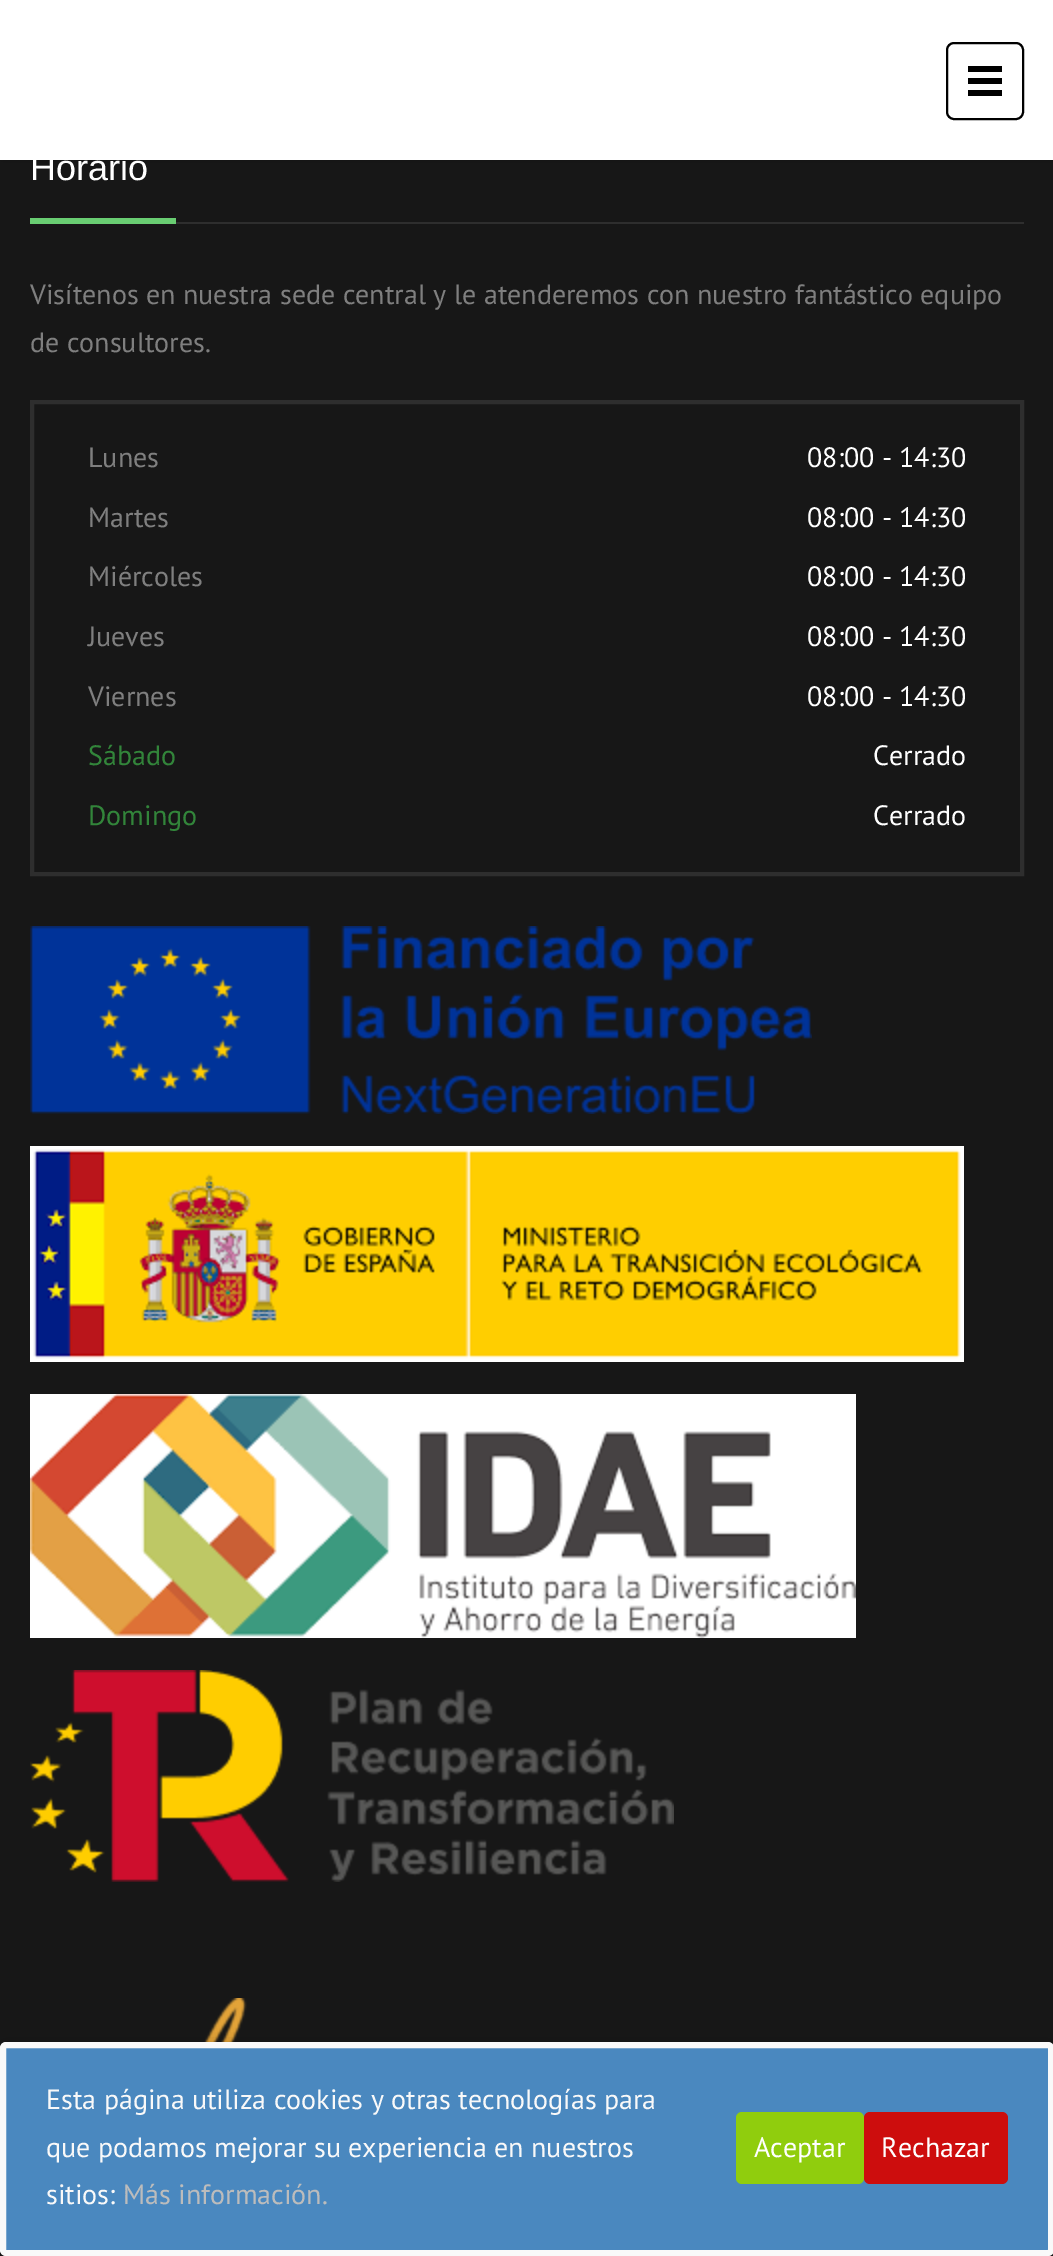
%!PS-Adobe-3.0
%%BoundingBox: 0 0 1053 2256
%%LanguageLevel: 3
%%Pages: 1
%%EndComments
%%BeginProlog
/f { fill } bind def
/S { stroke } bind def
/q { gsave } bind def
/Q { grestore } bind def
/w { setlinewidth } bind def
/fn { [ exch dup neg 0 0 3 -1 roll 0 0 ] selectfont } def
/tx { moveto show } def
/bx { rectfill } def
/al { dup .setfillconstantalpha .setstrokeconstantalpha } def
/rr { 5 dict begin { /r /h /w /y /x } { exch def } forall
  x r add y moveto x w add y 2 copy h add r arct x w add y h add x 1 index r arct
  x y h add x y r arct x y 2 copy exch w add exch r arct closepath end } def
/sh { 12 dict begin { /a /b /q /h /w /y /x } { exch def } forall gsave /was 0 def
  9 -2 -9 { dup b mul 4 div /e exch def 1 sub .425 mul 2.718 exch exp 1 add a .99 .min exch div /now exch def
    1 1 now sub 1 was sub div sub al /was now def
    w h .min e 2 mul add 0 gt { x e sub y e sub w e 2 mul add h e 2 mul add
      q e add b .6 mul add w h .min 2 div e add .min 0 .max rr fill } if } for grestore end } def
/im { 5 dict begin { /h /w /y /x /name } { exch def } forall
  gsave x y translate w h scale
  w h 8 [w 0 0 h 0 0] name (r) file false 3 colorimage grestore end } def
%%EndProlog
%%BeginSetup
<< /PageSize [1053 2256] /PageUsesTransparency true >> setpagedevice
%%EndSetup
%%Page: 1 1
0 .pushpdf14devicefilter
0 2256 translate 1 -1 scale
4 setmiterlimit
0.09 setgray
0 0 1053 2256 bx
0 setgray
2 0 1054 160 0 4 0.15 sh
1 setgray
0 0 1053 160 bx
0 setgray
2 w
947 43 76 76 7 rr S
968 66 34 6 bx
968 78 34 6 bx
968 90 34 6 bx
0.18 setgray
176 222 848 2 bx
/LiberationSans-Regular 36 fn
1 setgray
(Horario) 30 180 tx
0.412 0.804 0.447 setrgbcolor
30 218 146 6 bx
/PTSans-Regular 28 fn
0.498 setgray
(Visítenos en nuestra sede central y le atenderemos con nuestro fantástico equipo) 30 304 tx
(de consultores.) 30 352 tx
0.18 setgray
4 w
32 402 990 472 rectstroke
0.498 setgray
(Lunes) 88 467 tx
1 setgray
(08:00 - 14:30) 807 467 tx
0.498 setgray
(Martes) 88 527 tx
1 setgray
(08:00 - 14:30) 807 527 tx
0.498 setgray
(Miércoles) 88 586 tx
1 setgray
(08:00 - 14:30) 807 586 tx
0.498 setgray
(Jueves) 88 646 tx
1 setgray
(08:00 - 14:30) 807 646 tx
0.498 setgray
(Viernes) 88 706 tx
1 setgray
(08:00 - 14:30) 807 706 tx
0.196 0.522 0.227 setrgbcolor
(Sábado) 88 765 tx
1 setgray
(Cerrado) 873 765 tx
0.196 0.522 0.227 setrgbcolor
(Domingo) 88 825 tx
1 setgray
(Cerrado) 873 825 tx
(image0.raw) 30 926 782 188 im
(image1.raw) 30 1146 934 216 im
(image2.raw) 30 1394 826 244 im
(image3.raw) 30 1670 644 212 im
(image4.raw) 204 1998 43 44 im
0 setgray
0 2048 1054 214 6 9 0.4 sh
0.29 0.533 0.749 setrgbcolor
3 2045 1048 208 3 rr q f Q
0.976 setgray
6 w
S
(Esta página utiliza cookies y otras tecnologías para) 46 2109 tx
(que podamos mejorar su experiencia en nuestros) 46 2157 tx
(sitios:) 46 2204 tx
0.737 setgray
(Más información.) 123 2204 tx
0.565 0.804 0.051 setrgbcolor
736 2112 128 72 6 rr f
1 setgray
(Aceptar) 754 2157 tx
0.804 0.051 0.051 setrgbcolor
864 2112 144 72 6 rr f
1 setgray
(Rechazar) 881 2157 tx
.poppdf14devicefilter showpage
%%EOF
